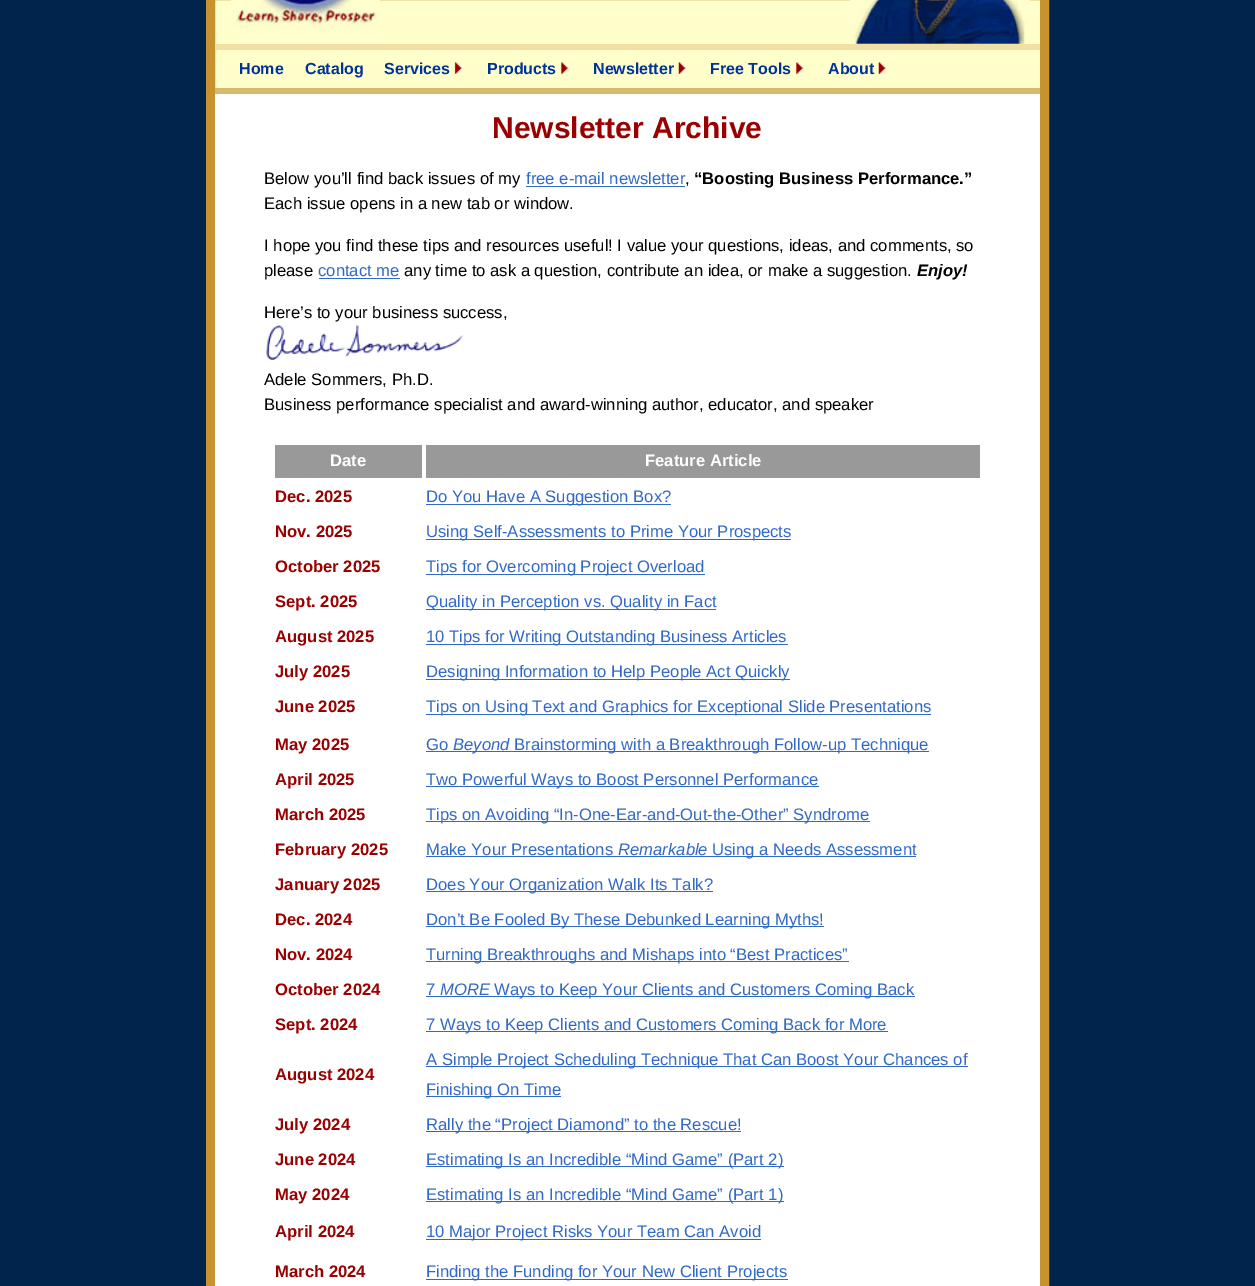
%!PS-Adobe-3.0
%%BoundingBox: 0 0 1255 1286
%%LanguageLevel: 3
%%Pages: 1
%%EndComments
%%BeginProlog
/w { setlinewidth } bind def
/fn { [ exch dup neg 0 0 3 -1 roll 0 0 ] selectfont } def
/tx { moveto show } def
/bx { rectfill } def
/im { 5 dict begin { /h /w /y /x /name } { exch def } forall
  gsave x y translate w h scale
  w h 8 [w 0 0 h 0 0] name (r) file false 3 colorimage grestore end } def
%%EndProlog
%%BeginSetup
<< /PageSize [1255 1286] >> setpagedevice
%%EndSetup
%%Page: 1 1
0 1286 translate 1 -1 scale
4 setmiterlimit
0 0.141 0.298 setrgbcolor
0 0 1255 1286 bx
1 1 0.8 setrgbcolor
215 0 825 88 bx
0.776 0.576 0.188 setrgbcolor
9 w
210.5 -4.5 834 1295 rectstroke
0.949 0.878 0.639 setrgbcolor
215 44 825 6 bx
(image0.raw) 231 0 149 44 im
(image1.raw) 850 0 180 44 im
0.847 0.722 0.424 setrgbcolor
215 88 825 6 bx
/LiberationSans-Bold 16 fn
0 0.2 0.6 setrgbcolor
(Home) 239 74 tx
(Catalog) 305 74 tx
(Services) 384 74 tx
(image2.raw) 454 62 9 12 im
(Products) 487 74 tx
(image3.raw) 561 62 8 12 im
(Newsletter) 593 74 tx
(image4.raw) 678 62 9 12 im
(Free Tools) 710 74 tx
(image5.raw) 796 62 8 12 im
(About) 828 74 tx
(image4.raw) 878 62 9 12 im
1 setgray
215 94 825 1192 bx
/LiberationSans-Bold 30 fn
0.6 0 0 setrgbcolor
(Newsletter Archive) 492 138 tx
/LiberationSans-Regular 16.65 fn
0 setgray
(Below you’ll find back issues of my) 264 184 tx
0.192 0.412 0.776 setrgbcolor
(free e-mail newsletter) 526 184 tx
526 186 159 1 bx
0 setgray
(,) 685 184 tx
/LiberationSans-Bold 16.65 fn
(“Boosting Business Performance.”) 694 184 tx
/LiberationSans-Regular 16.65 fn
(Each issue opens in a new tab or window.) 264 209 tx
(I hope you find these tips and resources useful! I value your questions, ideas, and comments, so) 264 251 tx
(please) 264 276 tx
0.192 0.412 0.776 setrgbcolor
(contact me) 318 276 tx
319 278 81 1 bx
0 setgray
(any time to ask a question, contribute an idea, or make a suggestion.) 404 276 tx
/LiberationSans-BoldItalic 16.65 fn
(Enjoy!) 917 276 tx
/LiberationSans-Regular 16.65 fn
(Here’s to your business success,) 264 318 tx
(image6.raw) 266 325 198 35 im
(Adele Sommers, Ph.D.) 264 385 tx
(Business performance specialist and award-winning author, educator, and speaker) 264 410 tx
0.6 setgray
275 445 147 33 bx
/LiberationSans-Bold 16.65 fn
1 setgray
(Date) 330 466 tx
0.6 setgray
426 445 554 33 bx
1 setgray
(Feature Article) 645 466 tx
0.6 0 0 setrgbcolor
(Dec. 2025) 275 502 tx
0.192 0.412 0.776 setrgbcolor
426 504 245 1 bx
/LiberationSans-Regular 16.65 fn
(Do You Have A Suggestion Box?) 426 502 tx
/LiberationSans-Bold 16.65 fn
0.6 0 0 setrgbcolor
(Nov. 2025) 275 537 tx
0.192 0.412 0.776 setrgbcolor
426 539 365 1 bx
/LiberationSans-Regular 16.65 fn
(Using Self-Assessments to Prime Your Prospects) 426 537 tx
/LiberationSans-Bold 16.65 fn
0.6 0 0 setrgbcolor
(October 2025) 275 572 tx
0.192 0.412 0.776 setrgbcolor
426 574 279 1 bx
/LiberationSans-Regular 16.65 fn
(Tips for Overcoming Project Overload) 426 572 tx
/LiberationSans-Bold 16.65 fn
0.6 0 0 setrgbcolor
(Sept. 2025) 275 607 tx
0.192 0.412 0.776 setrgbcolor
426 609 290 1 bx
/LiberationSans-Regular 16.65 fn
(Quality in Perception vs. Quality in Fact) 426 607 tx
/LiberationSans-Bold 16.65 fn
0.6 0 0 setrgbcolor
(August 2025) 275 642 tx
0.192 0.412 0.776 setrgbcolor
426 644 362 1 bx
/LiberationSans-Regular 16.65 fn
(10 Tips for Writing Outstanding Business Articles) 426 642 tx
/LiberationSans-Bold 16.65 fn
0.6 0 0 setrgbcolor
(July 2025) 275 677 tx
0.192 0.412 0.776 setrgbcolor
426 679 364 1 bx
/LiberationSans-Regular 16.65 fn
(Designing Information to Help People Act Quickly) 426 677 tx
/LiberationSans-Bold 16.65 fn
0.6 0 0 setrgbcolor
(June 2025) 275 712 tx
0.192 0.412 0.776 setrgbcolor
426 714 505 1 bx
/LiberationSans-Regular 16.65 fn
(Tips on Using Text and Graphics for Exceptional Slide Presentations) 426 712 tx
/LiberationSans-Bold 16.65 fn
0.6 0 0 setrgbcolor
(May 2025) 275 750 tx
/LiberationSans-Regular 16.65 fn
0.192 0.412 0.776 setrgbcolor
(Go) 426 750 tx
426 751 83 1 bx
/LiberationSans-Italic 16.65 fn
(Beyond) 453 750 tx
509 751 420 1 bx
/LiberationSans-Regular 16.65 fn
(Brainstorming with a Breakthrough Follow-up Technique) 514 750 tx
/LiberationSans-Bold 16.65 fn
0.6 0 0 setrgbcolor
(April 2025) 275 785 tx
0.192 0.412 0.776 setrgbcolor
426 786 393 1 bx
/LiberationSans-Regular 16.65 fn
(Two Powerful Ways to Boost Personnel Performance) 426 785 tx
/LiberationSans-Bold 16.65 fn
0.6 0 0 setrgbcolor
(March 2025) 275 820 tx
0.192 0.412 0.776 setrgbcolor
426 821 444 1 bx
/LiberationSans-Regular 16.65 fn
(Tips on Avoiding “In-One-Ear-and-Out-the-Other” Syndrome) 426 820 tx
/LiberationSans-Bold 16.65 fn
0.6 0 0 setrgbcolor
(February 2025) 275 855 tx
/LiberationSans-Regular 16.65 fn
0.192 0.412 0.776 setrgbcolor
(Make Your Presentations) 426 855 tx
/LiberationSans-Italic 16.65 fn
(Remarkable) 618 855 tx
426 856 490 1 bx
/LiberationSans-Regular 16.65 fn
(Using a Needs Assessment) 712 855 tx
/LiberationSans-Bold 16.65 fn
0.6 0 0 setrgbcolor
(January 2025) 275 890 tx
0.192 0.412 0.776 setrgbcolor
426 891 287 1 bx
/LiberationSans-Regular 16.65 fn
(Does Your Organization Walk Its Talk?) 426 890 tx
/LiberationSans-Bold 16.65 fn
0.6 0 0 setrgbcolor
(Dec. 2024) 275 925 tx
0.192 0.412 0.776 setrgbcolor
426 926 398 1 bx
/LiberationSans-Regular 16.65 fn
(Don’t Be Fooled By These Debunked Learning Myths!) 426 925 tx
/LiberationSans-Bold 16.65 fn
0.6 0 0 setrgbcolor
(Nov. 2024) 275 960 tx
0.192 0.412 0.776 setrgbcolor
426 961 423 1 bx
/LiberationSans-Regular 16.65 fn
(Turning Breakthroughs and Mishaps into “Best Practices”) 426 960 tx
/LiberationSans-Bold 16.65 fn
0.6 0 0 setrgbcolor
(October 2024) 275 995 tx
/LiberationSans-Regular 16.65 fn
0.192 0.412 0.776 setrgbcolor
(7) 426 995 tx
/LiberationSans-Italic 16.65 fn
(MORE) 440 995 tx
426 996 489 1 bx
/LiberationSans-Regular 16.65 fn
(Ways to Keep Your Clients and Customers Coming Back) 494 995 tx
/LiberationSans-Bold 16.65 fn
0.6 0 0 setrgbcolor
(Sept. 2024) 275 1030 tx
0.192 0.412 0.776 setrgbcolor
426 1031 462 1 bx
/LiberationSans-Regular 16.65 fn
(7 Ways to Keep Clients and Customers Coming Back for More) 426 1030 tx
/LiberationSans-Bold 16.65 fn
0.6 0 0 setrgbcolor
(August 2024) 275 1080 tx
0.192 0.412 0.776 setrgbcolor
426 1066 542 1 bx
/LiberationSans-Regular 16.65 fn
(A Simple Project Scheduling Technique That Can Boost Your Chances of) 426 1065 tx
426 1096 135 1 bx
(Finishing On Time) 426 1095 tx
/LiberationSans-Bold 16.65 fn
0.6 0 0 setrgbcolor
(July 2024) 275 1130 tx
0.192 0.412 0.776 setrgbcolor
426 1131 315 1 bx
/LiberationSans-Regular 16.65 fn
(Rally the “Project Diamond” to the Rescue!) 426 1130 tx
/LiberationSans-Bold 16.65 fn
0.6 0 0 setrgbcolor
(June 2024) 275 1165 tx
0.192 0.412 0.776 setrgbcolor
426 1166 358 1 bx
/LiberationSans-Regular 16.65 fn
(Estimating Is an Incredible “Mind Game” \(Part 2\)) 426 1165 tx
/LiberationSans-Bold 16.65 fn
0.6 0 0 setrgbcolor
(May 2024) 275 1200 tx
0.192 0.412 0.776 setrgbcolor
426 1201 358 1 bx
/LiberationSans-Regular 16.65 fn
(Estimating Is an Incredible “Mind Game” \(Part 1\)) 426 1200 tx
/LiberationSans-Bold 16.65 fn
0.6 0 0 setrgbcolor
(April 2024) 275 1237 tx
0.192 0.412 0.776 setrgbcolor
426 1239 335 1 bx
/LiberationSans-Regular 16.65 fn
(10 Major Project Risks Your Team Can Avoid) 426 1237 tx
/LiberationSans-Bold 16.65 fn
0.6 0 0 setrgbcolor
(March 2024) 275 1277 tx
0.192 0.412 0.776 setrgbcolor
426 1279 362 1 bx
/LiberationSans-Regular 16.65 fn
(Finding the Funding for Your New Client Projects) 426 1277 tx
showpage
%%EOF
